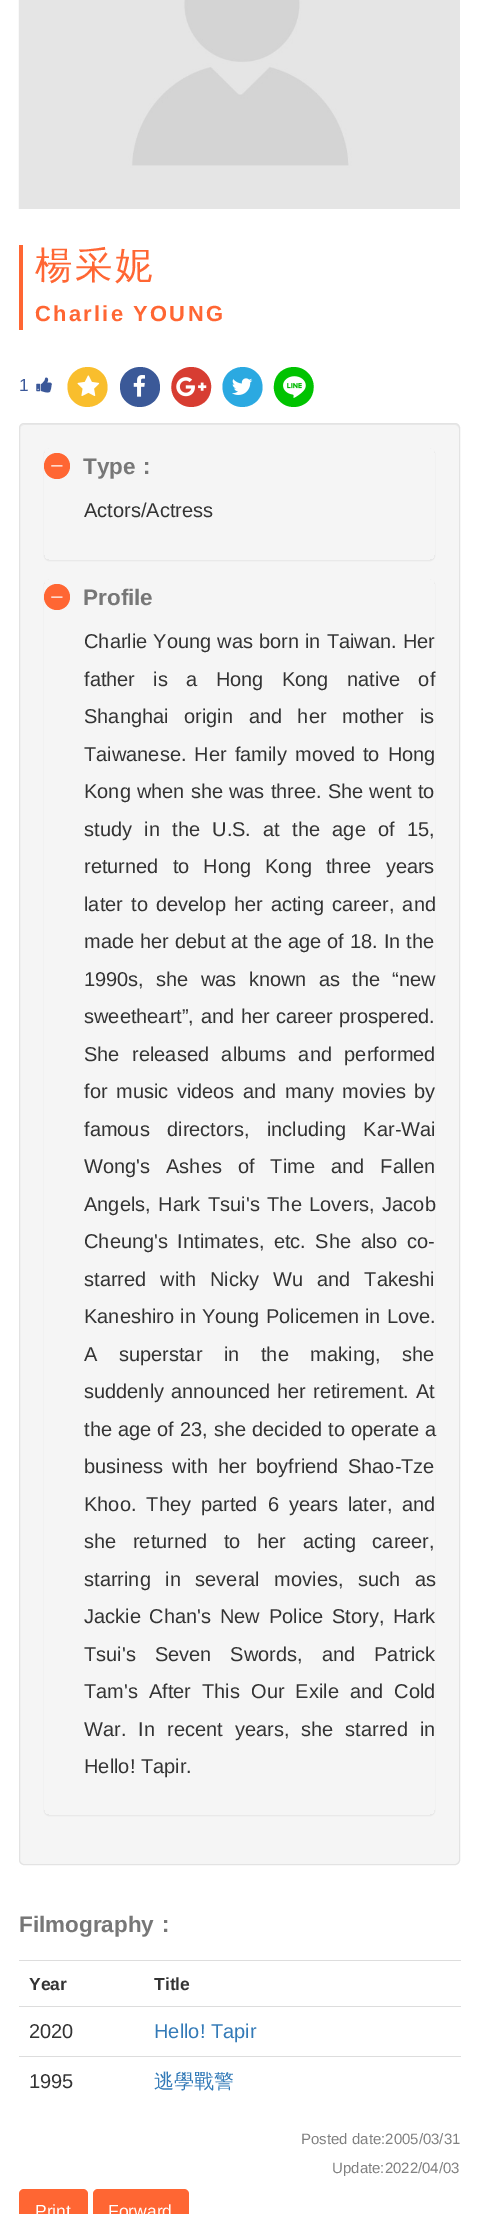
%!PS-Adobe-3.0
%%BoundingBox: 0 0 478 2214
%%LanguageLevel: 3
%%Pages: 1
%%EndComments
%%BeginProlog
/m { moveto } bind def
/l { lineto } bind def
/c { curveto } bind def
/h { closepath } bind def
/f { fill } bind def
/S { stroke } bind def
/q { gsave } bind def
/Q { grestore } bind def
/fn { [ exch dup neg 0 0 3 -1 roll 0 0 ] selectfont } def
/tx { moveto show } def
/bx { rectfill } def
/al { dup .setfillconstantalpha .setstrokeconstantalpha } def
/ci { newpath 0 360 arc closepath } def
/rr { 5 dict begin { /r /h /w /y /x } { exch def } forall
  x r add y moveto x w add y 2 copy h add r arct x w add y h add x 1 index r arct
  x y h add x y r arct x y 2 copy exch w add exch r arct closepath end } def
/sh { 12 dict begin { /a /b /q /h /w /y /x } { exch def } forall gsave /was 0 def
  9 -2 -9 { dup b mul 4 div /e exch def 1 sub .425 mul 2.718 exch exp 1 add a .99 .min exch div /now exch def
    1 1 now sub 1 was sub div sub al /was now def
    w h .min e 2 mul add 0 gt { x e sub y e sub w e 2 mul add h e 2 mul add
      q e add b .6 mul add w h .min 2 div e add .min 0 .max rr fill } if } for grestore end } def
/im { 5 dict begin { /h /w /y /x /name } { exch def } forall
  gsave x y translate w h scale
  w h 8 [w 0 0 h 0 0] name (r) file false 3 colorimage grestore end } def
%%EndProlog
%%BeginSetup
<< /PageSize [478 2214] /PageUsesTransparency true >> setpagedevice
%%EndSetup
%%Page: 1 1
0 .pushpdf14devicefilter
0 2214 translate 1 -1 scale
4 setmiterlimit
1 setgray
0 0 478 2214 bx
(image0.raw) 18 0 442 209 im
1 0.4 0.2 setrgbcolor
19 245 4 85 bx
/WenQuanYiZenHei-Medium 37.5 fn
35 278 m 2.25 0 (楊采妮) ashow
/LiberationSans-Bold 21.9 fn
35 321 m 2.25 0 (Charlie YOUNG) ashow
/LiberationSans-Regular 17.5 fn
0.231 0.345 0.6 setrgbcolor
(1) 19 391 tx
(image1.raw) 36 377 16 16 im
0.976 0.745 0.176 setrgbcolor
105 377 m 107 380.5 107.5 384.5 107.5 388.5 c 106 408 80 414 70 397 c 68 393.5 67.5 389.5 67.5 385.5 c 69 366 95 360 105 377 c h f
(image2.raw) 77 375 23 21 im
0.231 0.349 0.596 setrgbcolor
157.5 377 m 159.5 380.5 160 384.5 160 388.5 c 158.5 408 132.5 414 122.5 397 c 120.5 393.5 120 389.5 120 385.5 c 121.5 366 147.5 360 157.5 377 c h f
(image3.raw) 133 375 12 22 im
0.843 0.239 0.196 setrgbcolor
208.5 377 m 210.5 380.5 211.5 384.5 211 388.5 c 210 408 184 414 174 397 c 172 393.5 171 389.5 171.5 385.5 c 172.5 366 198.5 360 208.5 377 c h f
(image4.raw) 176 377 31 20 im
0.169 0.663 0.882 setrgbcolor
260 377 m 262 380.5 262.5 384.5 262.5 388.5 c 261 408 235 414 225 397 c 223 393.5 222.5 389.5 222.5 385.5 c 224 366 250 360 260 377 c h f
(image5.raw) 232 378 21 17 im
0 0.765 0 setrgbcolor
311 377 m 313 380.5 314 384.5 313.5 388.5 c 312.5 408 286.5 414 276.5 397 c 274.5 393.5 273.5 389.5 274 385.5 c 275 366 301 360 311 377 c h f
(image6.raw) 283 376 23 22 im
0.961 setgray
19 423 441 1442 5 rr f
0.914 setgray
24 425 m 455 425 l 457 425 459 427 459 429 c 459 426 458 424 455 424 c 24 424 l 22 425 l 21 426 l 20 429 l 20 427 22 425 24 425 c h f
0.89 setgray
19.5 423.5 440 1441 4.5 rr S
q
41 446 m 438 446 l 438 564 l 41 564 l h 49 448 m 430 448 l 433 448 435 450 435 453 c 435 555 l 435 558 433 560 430 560 c 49 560 l 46 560 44 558 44 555 c 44 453 l 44 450 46 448 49 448 c h eoclip newpath
0 setgray
44 449 391 112 5 0.5 0.05 sh
Q
1 0.4 0.2 setrgbcolor
57 466 13 ci f
(image7.raw) 51 465 12 2 im
/LiberationSans-Bold 22.5 fn
0.467 setgray
(Type) 83 474 tx
/WenQuanYiZenHei-Bold 22.5 fn
(：) 135 474 tx
/LiberationSans-Regular 20 fn
0.2 setgray
(Actors/Actress) 84 517 tx
q
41 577 m 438 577 l 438 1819 l 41 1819 l h 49 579 m 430 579 l 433 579 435 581 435 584 c 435 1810 l 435 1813 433 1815 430 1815 c 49 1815 l 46 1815 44 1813 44 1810 c 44 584 l 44 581 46 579 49 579 c h eoclip newpath
0 setgray
44 580 391 1236 5 0.5 0.05 sh
Q
1 0.4 0.2 setrgbcolor
57 597 13 ci f
(image8.raw) 51 596 12 2 im
/LiberationSans-Bold 22.5 fn
0.467 setgray
(Profile) 83 605 tx
/LiberationSans-Regular 20 fn
0.2 setgray
84 648 m 0.5 0 32 (Charlie Young was born in Taiwan. Her) widthshow
84 686 m 12.75 0 32 (father is a Hong Kong native of) widthshow
84 723 m 10 0 32 (Shanghai origin and her mother is) widthshow
84 761 m 2.5 0 32 (Taiwanese. Her family moved to Hong) widthshow
84 798 m 0.5 0 32 (Kong when she was three. She went to) widthshow
84 836 m 6.75 0 32 (study in the U.S. at the age of 15,) widthshow
84 873 m 8.5 0 32 (returned to Hong Kong three years) widthshow
84 911 m 2.5 0 32 (later to develop her acting career, and) widthshow
84 948 m 0.5 0 32 (made her debut at the age of 18. In the) widthshow
84 986 m 6.75 0 32 (1990s, she was known as the “new) widthshow
84 1023 m 1 0 32 (sweetheart”, and her career prospered.) widthshow
84 1061 m 7 0 32 (She released albums and performed) widthshow
84 1098 m 3 0 32 (for music videos and many movies by) widthshow
84 1136 m 12 0 32 (famous directors, including Kar-Wai) widthshow
84 1173 m 10.5 0 32 (Wong's Ashes of Time and Fallen) widthshow
84 1211 m 2 0 32 (Angels, Hark Tsui's The Lovers, Jacob) widthshow
84 1248 m 4 0 32 (Cheung's Intimates, etc. She also co-) widthshow
84 1286 m 8.5 0 32 (starred with Nicky Wu and Takeshi) widthshow
84 1323 m 0.5 0 32 (Kaneshiro in Young Policemen in Love.) widthshow
84 1361 m 16 0 32 (A superstar in the making, she) widthshow
84 1398 m 1.5 0 32 (suddenly announced her retirement. At) widthshow
84 1436 m 0.5 0 32 (the age of 23, she decided to operate a) widthshow
84 1473 m 4 0 32 (business with her boyfriend Shao-Tze) widthshow
84 1511 m 4.5 0 32 (Khoo. They parted 6 years later, and) widthshow
84 1548 m 11 0 32 (she returned to her acting career,) widthshow
84 1586 m 9 0 32 (starring in several movies, such as) widthshow
84 1623 m 3.25 0 32 (Jackie Chan's New Police Story, Hark) widthshow
84 1661 m 13.5 0 32 (Tsui's Seven Swords, and Patrick) widthshow
84 1698 m 5.5 0 32 (Tam's After This Our Exile and Cold) widthshow
84 1736 m 6.5 0 32 (War. In recent years, she starred in) widthshow
(Hello! Tapir.) 84 1773 tx
/LiberationSans-Bold 22.5 fn
0.467 setgray
(Filmography) 19 1932 tx
/WenQuanYiZenHei-Bold 22.5 fn
(：) 154 1932 tx
/LiberationSans-Bold 17.5 fn
0.2 setgray
(Year) 29 1990 tx
0.867 setgray
19 1960 442 1 bx
0.2 setgray
(Title) 154 1990 tx
/LiberationSans-Regular 20 fn
(2020) 29 2038 tx
0.867 setgray
19 2006 442 1 bx
0.2 0.478 0.718 setrgbcolor
(Hello! Tapir) 154 2038 tx
0.2 setgray
(1995) 29 2088 tx
0.867 setgray
19 2056 442 1 bx
/WenQuanYiZenHei-Medium 20 fn
0.2 0.478 0.718 setrgbcolor
(逃學戰警) 154 2088 tx
/LiberationSans-Regular 15 fn
0.502 setgray
(Posted date:2005/03/31) 301 2144 tx
(Update:2022/04/03) 332 2173 tx
1 0.4 0.2 setrgbcolor
19 2189 69 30 5 rr f
/LiberationSans-Regular 17.5 fn
1 setgray
(Print) 35 2217 tx
1 0.4 0.2 setrgbcolor
93 2189 96 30 5 rr f
1 setgray
(Forward) 108 2217 tx
.poppdf14devicefilter showpage
%%EOF
